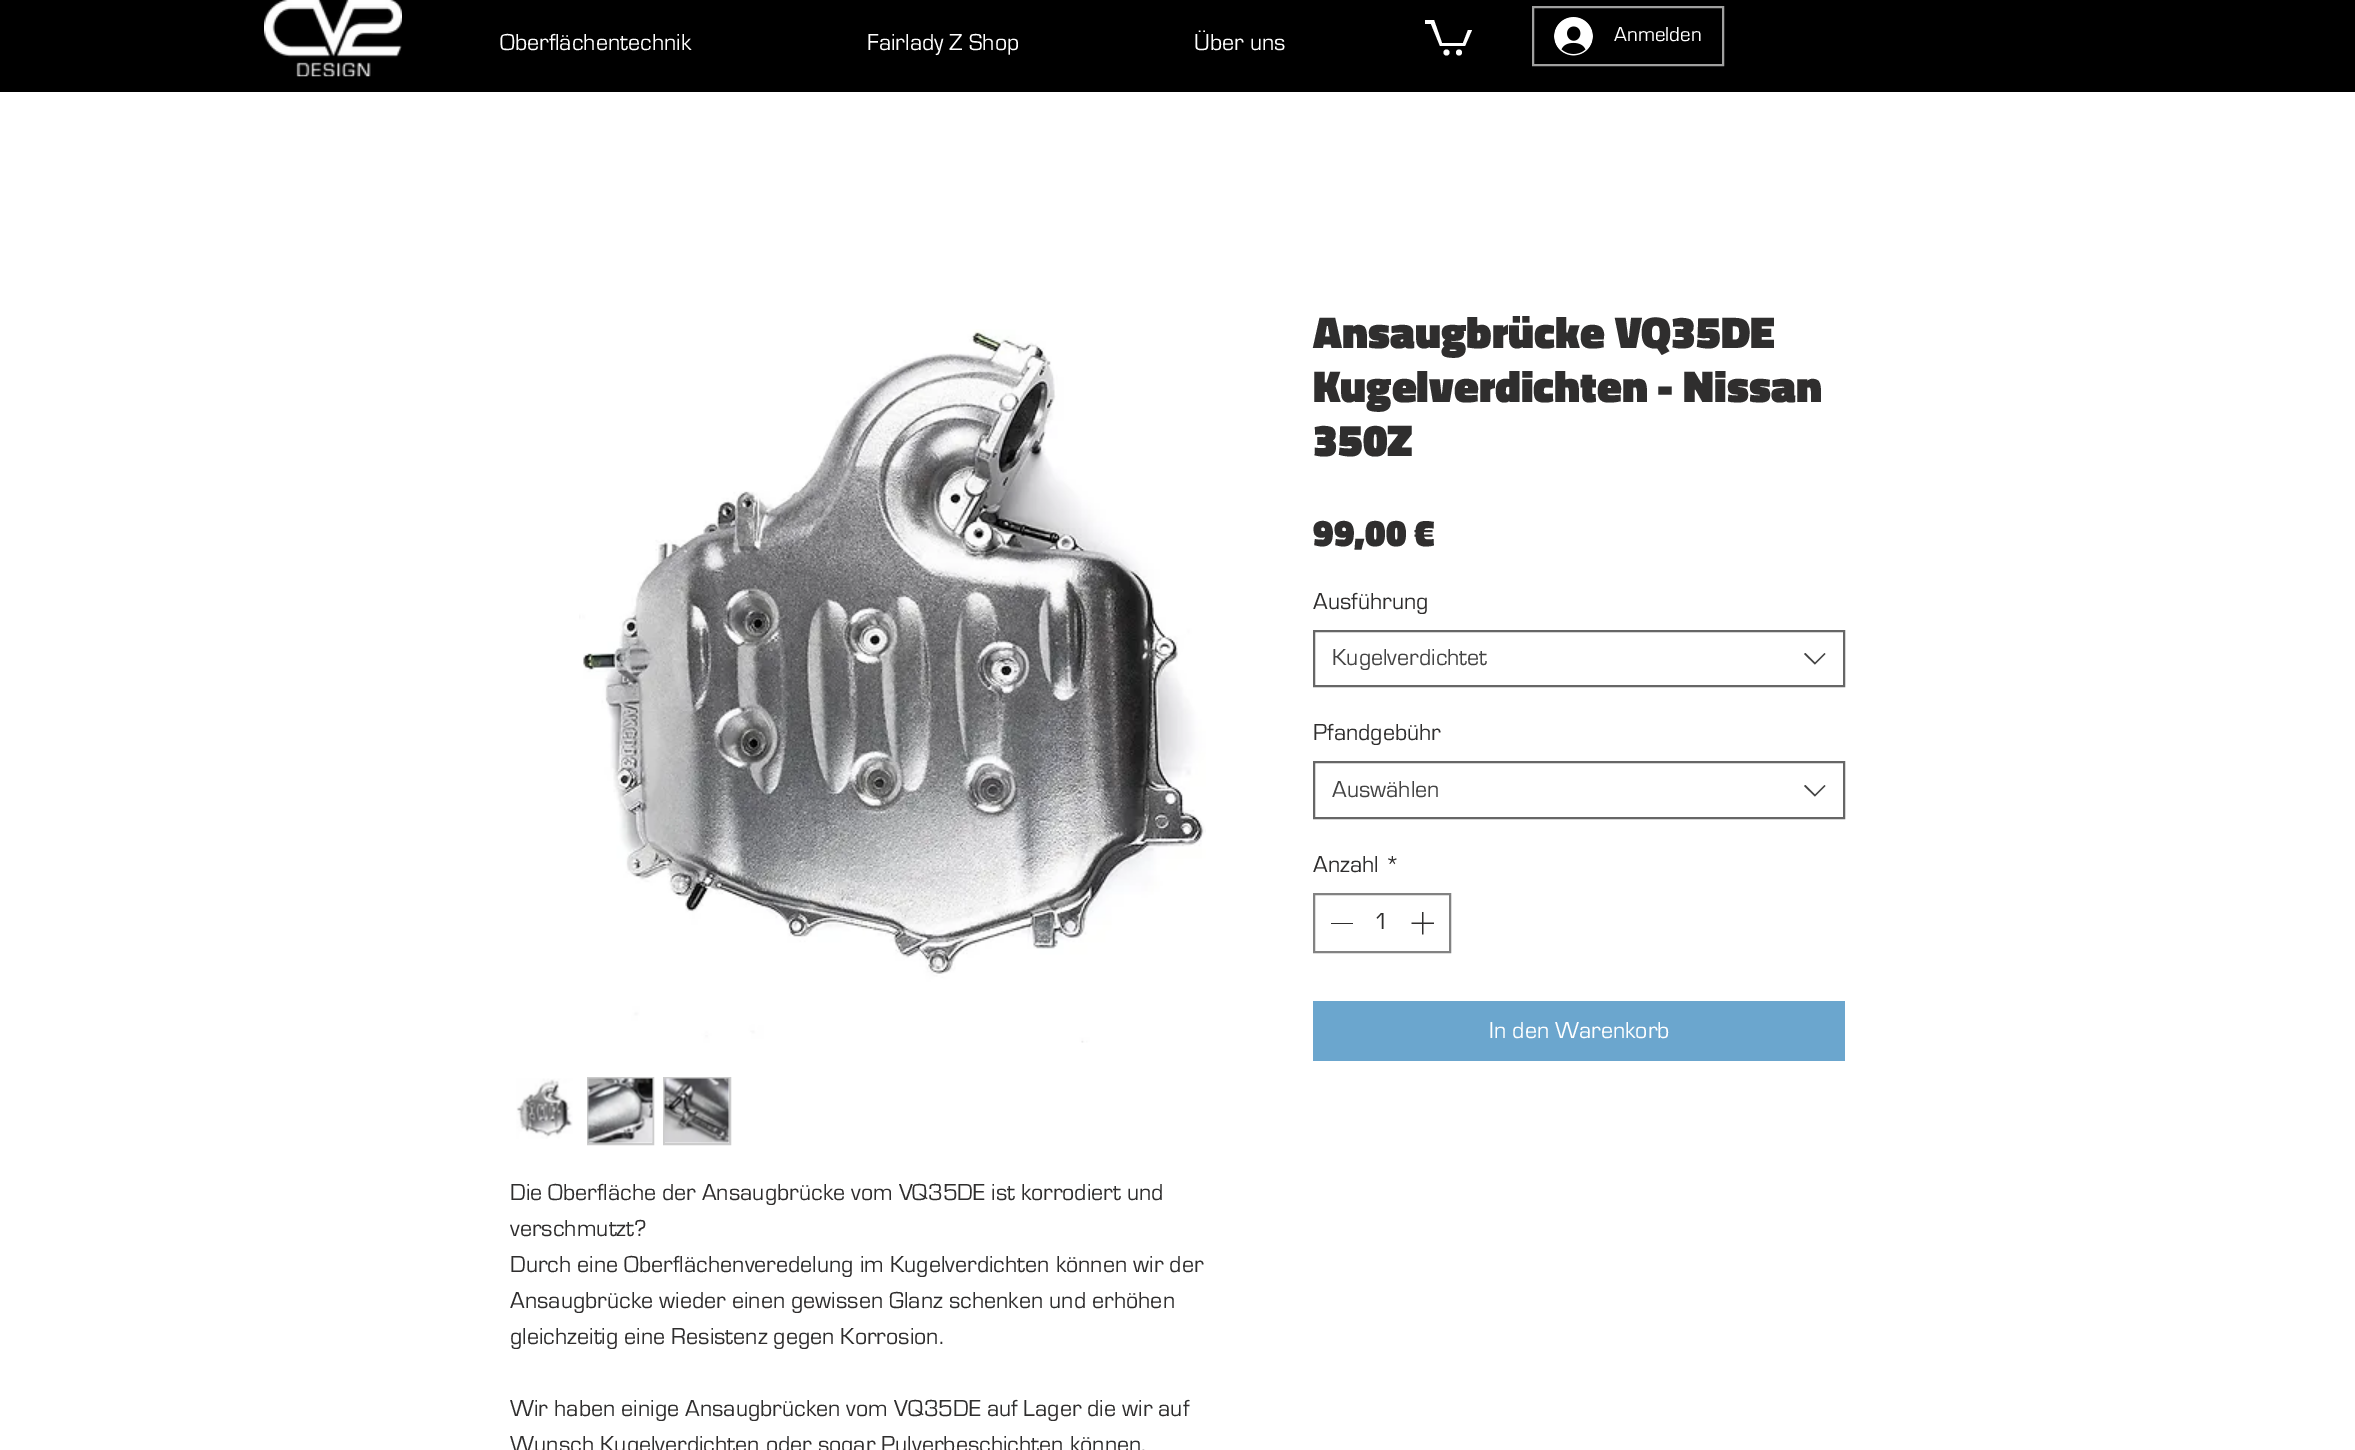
%!PS-Adobe-3.0
%%BoundingBox: 0 0 2355 1450
%%LanguageLevel: 3
%%Pages: 1
%%EndComments
%%BeginProlog
/m { moveto } bind def
/l { lineto } bind def
/h { closepath } bind def
/f { fill } bind def
/w { setlinewidth } bind def
/fn { [ exch dup neg 0 0 3 -1 roll 0 0 ] selectfont } def
/tx { moveto show } def
/bx { rectfill } def
/ci { newpath 0 360 arc closepath } def
/im { 5 dict begin { /h /w /y /x /name } { exch def } forall
  gsave x y translate w h scale
  w h 8 [w 0 0 h 0 0] name (r) file false 3 colorimage grestore end } def
%%EndProlog
%%BeginSetup
<< /PageSize [2355 1450] >> setpagedevice
%%EndSetup
%%Page: 1 1
0 1450 translate 1 -1 scale
4 setmiterlimit
1 setgray
0 0 2355 1450 bx
0 setgray
0 0 2355 92 bx
(image0.raw) 264 0 138 77 im
/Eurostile-Regular 24 fn
1 setgray
(Oberflächentechnik) 500 50 tx
(Fairlady Z Shop) 867 50 tx
(Über uns) 1194 50 tx
1472 30 m 1465 46 l 1440 46 l 1431 24 l 1425 24 l 1425 20 l 1434 20 l 1442 43 l 1463 43 l 1468 30 l f
1459 52.5 3 ci f
1446.5 52.5 3 ci f
0.627 0.627 0.624 setrgbcolor
2 w
1533 7 190 58 rectstroke
(image1.raw) 1554 17 39 39 im
/Eurostile-Regular 21 fn
1 setgray
(Anmelden) 1614 41 tx
/TitilliumWeb-Black 45 fn
0.184 0.18 0.18 setrgbcolor
(Ansaugbrücke VQ35DE) 1313 348 tx
(Kugelverdichten - Nissan) 1313 402 tx
(350Z) 1313 456 tx
/TitilliumWeb-Black 37.5 fn
(99,00 €) 1313 546 tx
/Eurostile-Regular 24 fn
(Ausführung) 1313 609 tx
0.4 setgray
1314 631 530 55 rectstroke
0.267 setgray
(Kugelverdichtet) 1332 665 tx
1824.5 653 m 1825.5 654 l 1815 664.5 l 1804 654 l 1805.5 653 l 1815 662.5 l h eofill
0.184 0.18 0.18 setrgbcolor
(Pfandgebühr) 1313 740 tx
0.4 setgray
1314 762 530 56 rectstroke
0.267 setgray
(Auswählen) 1332 797 tx
1824.5 785 m 1825.5 786 l 1815 796.5 l 1804 786 l 1805.5 785 l 1815 794.5 l h eofill
0.184 0.18 0.18 setrgbcolor
(Anzahl *) 1313 872 tx
0.51 setgray
1314 894 136 58 rectstroke
0.184 0.18 0.18 setrgbcolor
1331 923 22 1 bx
(1) 1374 929 tx
(image2.raw) 1411 912 23 23 im
0.42 0.651 0.808 setrgbcolor
1313 1001 532 60 bx
1 setgray
(In den Warenkorb) 1489 1038 tx
(image3.raw) 579 329 627 714 im
(image4.raw) 516 1078 57 61 im
0.8 setgray
588 1078 65 66 rectstroke
(image5.raw) 587 1078 66 66 im
664 1078 66 66 rectstroke
(image6.raw) 664 1078 66 65 im
0.184 0.18 0.18 setrgbcolor
(Die Oberfläche der Ansaugbrücke vom VQ35DE ist korrodiert und) 510 1200 tx
(verschmutzt?) 510 1236 tx
(Durch eine Oberflächenveredelung im Kugelverdichten können wir der) 510 1272 tx
(Ansaugbrücke wieder einen gewissen Glanz schenken und erhöhen) 510 1308 tx
(gleichzeitig eine Resistenz gegen Korrosion.) 510 1344 tx
(Wir haben einige Ansaugbrücken vom VQ35DE auf Lager die wir auf) 510 1416 tx
(Wunsch Kugelverdichten oder sogar Pulverbeschichten können.) 510 1452 tx
showpage
%%EOF
